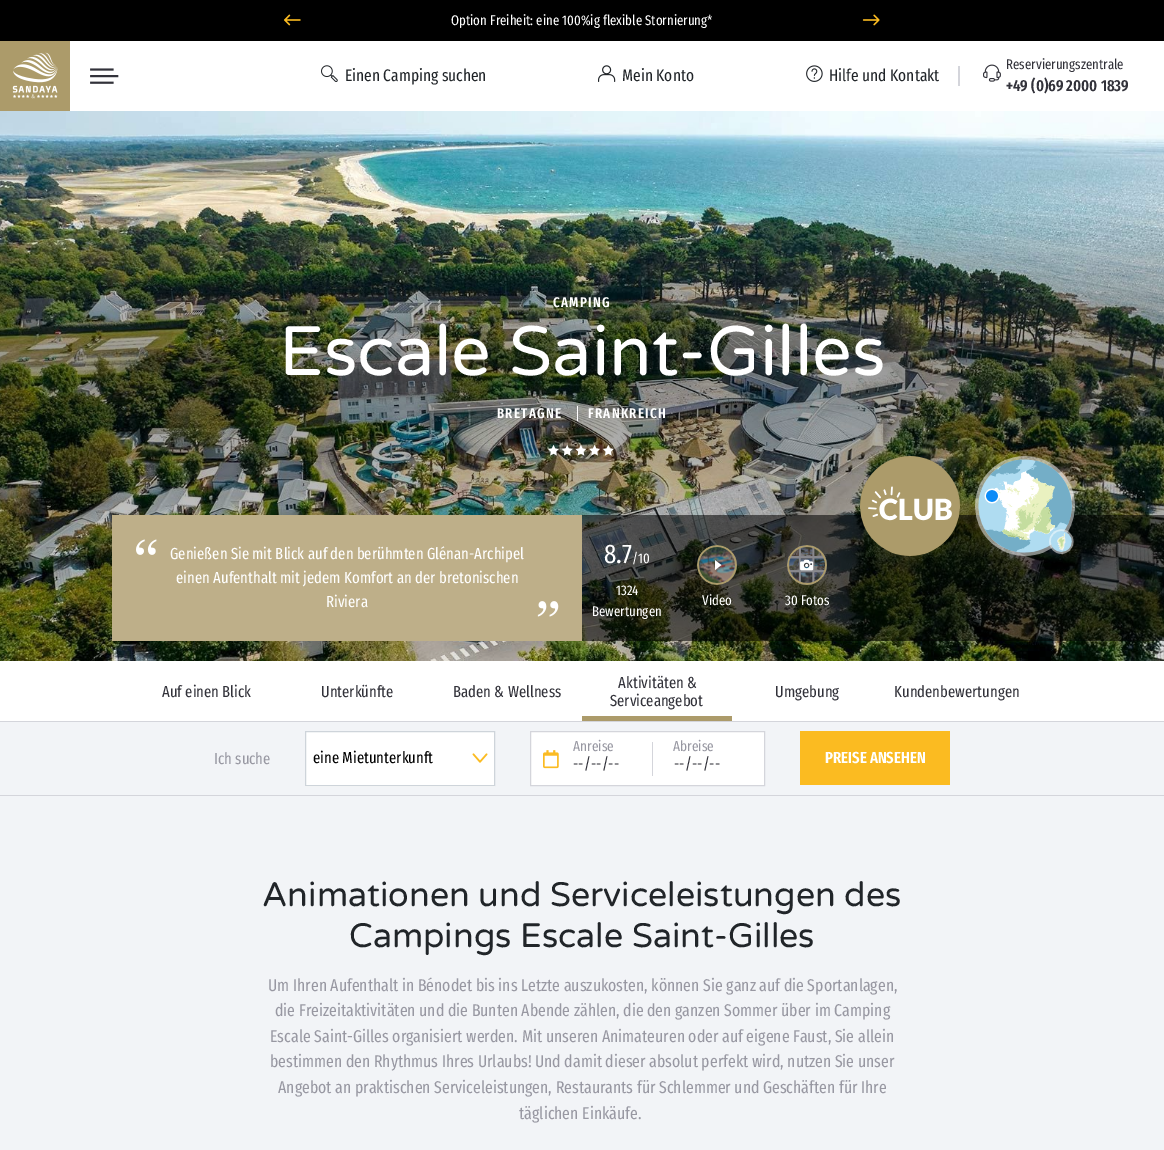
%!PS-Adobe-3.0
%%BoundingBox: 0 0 1164 1150
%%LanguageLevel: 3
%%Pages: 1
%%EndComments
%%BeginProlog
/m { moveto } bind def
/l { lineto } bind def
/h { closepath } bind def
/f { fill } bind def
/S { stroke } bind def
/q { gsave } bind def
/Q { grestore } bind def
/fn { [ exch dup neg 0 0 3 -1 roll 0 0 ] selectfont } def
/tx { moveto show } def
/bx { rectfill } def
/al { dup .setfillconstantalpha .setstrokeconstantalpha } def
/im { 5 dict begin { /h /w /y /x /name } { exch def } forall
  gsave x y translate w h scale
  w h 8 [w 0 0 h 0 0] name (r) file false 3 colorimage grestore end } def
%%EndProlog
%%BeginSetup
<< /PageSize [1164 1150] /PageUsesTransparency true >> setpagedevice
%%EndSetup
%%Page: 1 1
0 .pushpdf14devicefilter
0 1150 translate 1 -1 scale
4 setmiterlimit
1 setgray
0 0 1164 1150 bx
0 setgray
0 0 1164 41 bx
(image0.raw) 284 14 17 12 im
/FiraSansExtraCondensed-Regular 14 fn
1 setgray
(Option Freiheit: eine 100%ig flexible Stornierung*) 451 25 tx
(image1.raw) 862 14 18 12 im
(image2.raw) 0 41 70 70 im
(image3.raw) 90 68 29 16 im
(image4.raw) 321 65 17 17 im
/FiraSansExtraCondensed-Regular 16.75 fn
0.129 0.145 0.161 setrgbcolor
(Einen Camping suchen) 345 81 tx
(image5.raw) 598 65 18 17 im
(Mein Konto) 622 81 tx
(image6.raw) 806 65 17 17 im
(Hilfe und Kontakt) 829 81 tx
0.831 0.835 0.859 setrgbcolor
958 66 2 20 bx
(image7.raw) 983 64 18 18 im
/FiraSansExtraCondensed-Regular 14 fn
0.196 0.196 0.227 setrgbcolor
(Reservierungszentrale) 1006 69 tx
/FiraSansExtraCondensed-SemiBold 16 fn
(+49 \(0\)69 2000 1839) 1006 91 tx
(image8.raw) 0 111 1164 550 im
/FiraSansExtraCondensed-SemiBold 14 fn
1 setgray
553 307 m 1.25 0 (CAMPING) ashow
/VarelaRound-Regular 70 fn
(Escale Saint-Gilles) 279 375 tx
/FiraSansExtraCondensed-SemiBold 14 fn
497 418 m 1.25 0 (BRETAGNE) ashow
577 406 1 15 bx
588 418 m 1.25 0 (FRANKREICH) ashow
(image9.raw) 548 444 66 12 im
0.745 0.686 0.537 setrgbcolor
112 515 470 126 bx
(image10.raw) 136 539 21 16 im
/FiraSansExtraCondensed-Regular 16 fn
1 setgray
(Genießen Sie mit Blick auf den berühmten Glénan-Archipel) 170 559 tx
(einen Aufenthalt mit jedem Komfort an der bretonischen) 176 583 tx
(Riviera) 326 607 tx
(image11.raw) 537 601 22 16 im
0.55 al
0 setgray
582 515 582 126 bx
1 al
(image12.raw) 860 456 100 100 im
(image13.raw) 975 456 100 100 im
/FiraSansExtraCondensed-Regular 27 fn
1 setgray
(8.7) 604 563 tx
/FiraSansExtraCondensed-Regular 14 fn
(/10) 632 563 tx
(1324) 616 595 tx
(Bewertungen) 592 616 tx
(image14.raw) 697 545 40 40 im
(Video) 702 605 tx
(image15.raw) 787 545 40 40 im
(30 Fotos) 785 605 tx
0.831 0.835 0.859 setrgbcolor
0 721 1164 1 bx
/FiraSansExtraCondensed-Regular 16 fn
0.196 0.196 0.227 setrgbcolor
(Auf einen Blick) 162 697 tx
(Unterkünfte) 321 697 tx
(Baden & Wellness) 453 697 tx
(Aktivitäten &) 618 688 tx
(Serviceangebot) 610 706 tx
0.675 0.608 0.416 setrgbcolor
582 716 150 5 bx
0.196 0.196 0.227 setrgbcolor
(Umgebung) 775 697 tx
(Kundenbewertungen) 894 697 tx
0.949 0.957 0.969 setrgbcolor
0 722 1164 73 bx
0.831 0.835 0.859 setrgbcolor
0 795 1164 1 bx
0.596 0.596 0.635 setrgbcolor
(Ich suche) 214 764 tx
1 setgray
305 732 190 55 bx
(image16.raw) 472 753 16 10 im
0.808 0.831 0.855 setrgbcolor
305.5 731.5 189 54 rectstroke
0 setgray
(eine Mietunterkunft) 313 763 tx
1 setgray
530.5 731.5 m 764.5 731.5 l 764.5 785.5 l 530.5 785.5 l h q f Q
0.831 0.835 0.859 setrgbcolor
S
(image17.raw) 543 750 16 19 im
/FiraSansExtraCondensed-Regular 14.5 fn
0.596 0.596 0.635 setrgbcolor
(Anreise) 573 751 tx
/FiraSansExtraCondensed-Regular 16 fn
0.196 0.196 0.227 setrgbcolor
(--/--/--) 573 769 tx
0.831 0.835 0.859 setrgbcolor
652 742 1 34 bx
/FiraSansExtraCondensed-Regular 14.5 fn
0.596 0.596 0.635 setrgbcolor
(Abreise) 673 751 tx
/FiraSansExtraCondensed-Regular 16 fn
0.196 0.196 0.227 setrgbcolor
(--/--/--) 674 769 tx
0.984 0.733 0.129 setrgbcolor
800 731 150 54 bx
/FiraSansExtraCondensed-SemiBold 16 fn
1 setgray
(PREISE ANSEHEN) 825 763 tx
0.949 0.957 0.969 setrgbcolor
0 796 1164 354 bx
/VarelaRound-Regular 34 fn
0.129 0.145 0.161 setrgbcolor
(Animationen und Serviceleistungen des) 262 906 tx
(Campings Escale Saint-Gilles) 349 947 tx
/FiraSansExtraCondensed-Regular 17.1 fn
0.596 0.596 0.635 setrgbcolor
(Um Ihren Aufenthalt in Bénodet bis ins Letzte auszukosten, können Sie ganz auf die Sportanlagen,) 268 991 tx
(die Freizeitaktivitäten und die Bunten Abende zählen, die den ganzen Sommer über im Camping) 275 1016 tx
(Escale Saint-Gilles organisiert werden. Mit unseren Animateuren oder auf eigene Faust, Sie allein) 270 1042 tx
(bestimmen den Rhythmus Ihres Urlaubs! Und damit dieser absolut perfekt wird, nutzen Sie unser) 270 1067 tx
(Angebot an praktischen Serviceleistungen, Restaurants für Schlemmer und Geschäften für Ihre) 278 1093 tx
(täglichen Einkäufe.) 519 1119 tx
.poppdf14devicefilter showpage
%%EOF
